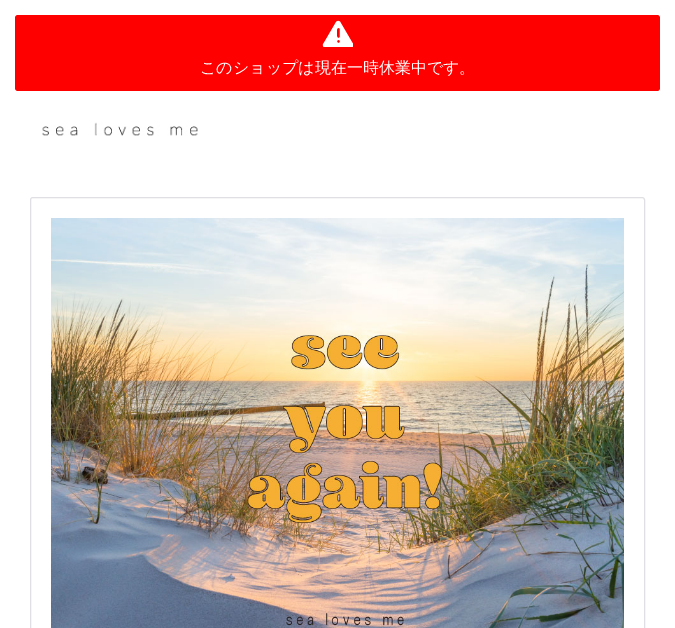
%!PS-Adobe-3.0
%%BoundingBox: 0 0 675 628
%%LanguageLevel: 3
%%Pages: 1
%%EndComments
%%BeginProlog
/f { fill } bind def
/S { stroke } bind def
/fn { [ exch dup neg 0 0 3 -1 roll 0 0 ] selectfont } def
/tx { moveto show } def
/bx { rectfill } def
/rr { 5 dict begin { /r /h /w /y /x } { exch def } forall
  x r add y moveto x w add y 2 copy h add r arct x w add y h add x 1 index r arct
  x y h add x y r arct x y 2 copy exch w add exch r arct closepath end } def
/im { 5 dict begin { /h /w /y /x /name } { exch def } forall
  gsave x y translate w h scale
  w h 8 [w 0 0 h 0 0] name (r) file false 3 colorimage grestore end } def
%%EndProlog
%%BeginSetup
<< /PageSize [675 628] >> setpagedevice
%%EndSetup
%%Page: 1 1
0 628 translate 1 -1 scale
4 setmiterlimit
1 setgray
0 0 675 628 bx
1 0 0 setrgbcolor
15 15 645 76 3 rr f
(image0.raw) 322 20 31 27 im
/WenQuanYiZenHei-Medium 16 fn
1 setgray
(このショップは現在一時休業中です。) 200 73 tx
(image1.raw) 42 122 156 14 im
0.878 0.875 0.89 setrgbcolor
30.5 197.5 614 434 2.5 rr S
(image2.raw) 51 218 573 410 im
showpage
%%EOF
